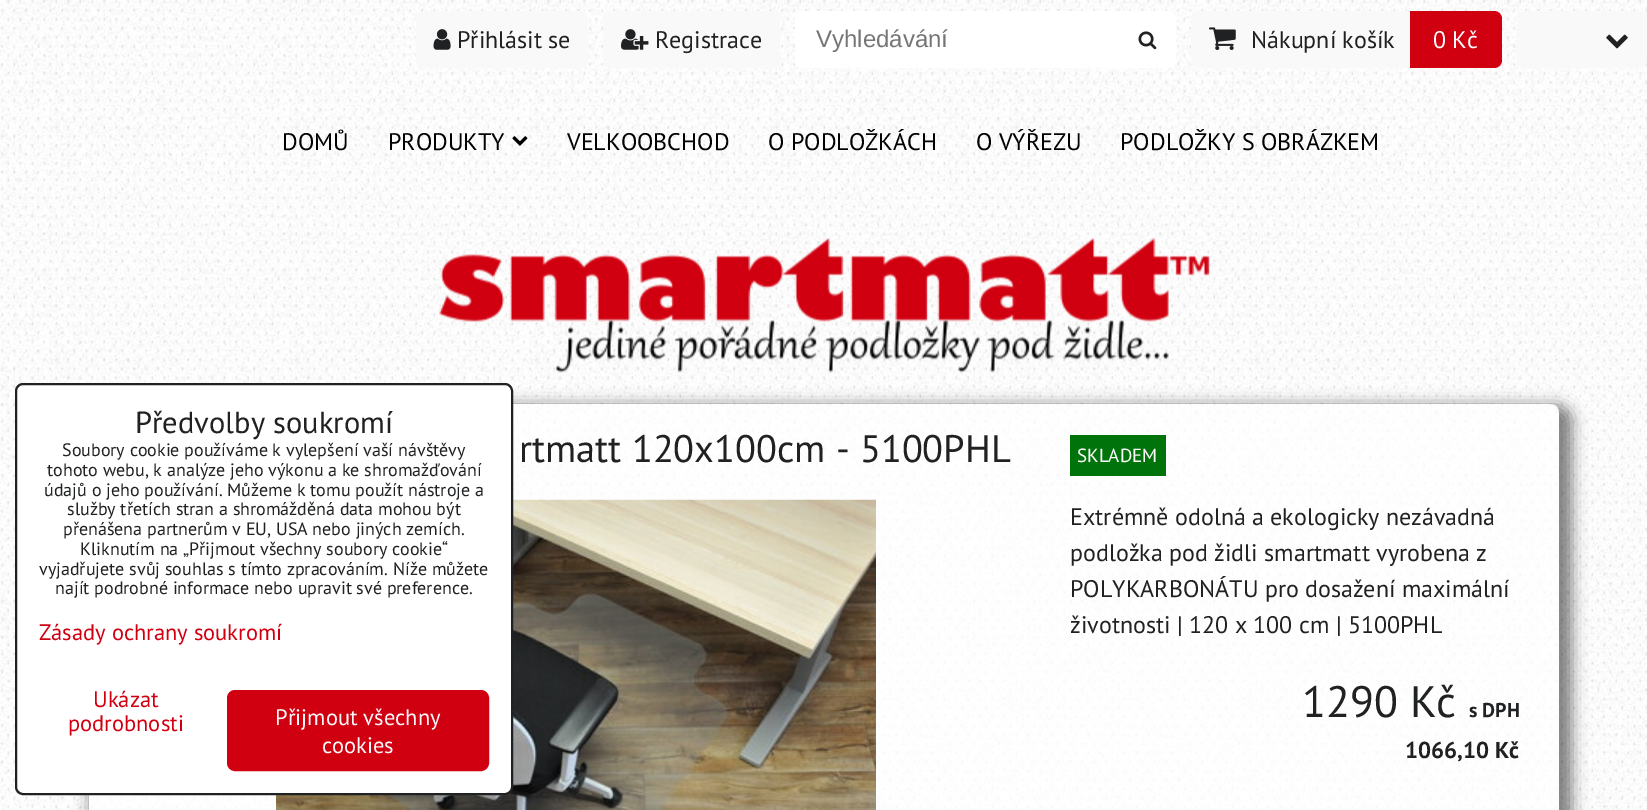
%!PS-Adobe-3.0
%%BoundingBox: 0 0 1647 810
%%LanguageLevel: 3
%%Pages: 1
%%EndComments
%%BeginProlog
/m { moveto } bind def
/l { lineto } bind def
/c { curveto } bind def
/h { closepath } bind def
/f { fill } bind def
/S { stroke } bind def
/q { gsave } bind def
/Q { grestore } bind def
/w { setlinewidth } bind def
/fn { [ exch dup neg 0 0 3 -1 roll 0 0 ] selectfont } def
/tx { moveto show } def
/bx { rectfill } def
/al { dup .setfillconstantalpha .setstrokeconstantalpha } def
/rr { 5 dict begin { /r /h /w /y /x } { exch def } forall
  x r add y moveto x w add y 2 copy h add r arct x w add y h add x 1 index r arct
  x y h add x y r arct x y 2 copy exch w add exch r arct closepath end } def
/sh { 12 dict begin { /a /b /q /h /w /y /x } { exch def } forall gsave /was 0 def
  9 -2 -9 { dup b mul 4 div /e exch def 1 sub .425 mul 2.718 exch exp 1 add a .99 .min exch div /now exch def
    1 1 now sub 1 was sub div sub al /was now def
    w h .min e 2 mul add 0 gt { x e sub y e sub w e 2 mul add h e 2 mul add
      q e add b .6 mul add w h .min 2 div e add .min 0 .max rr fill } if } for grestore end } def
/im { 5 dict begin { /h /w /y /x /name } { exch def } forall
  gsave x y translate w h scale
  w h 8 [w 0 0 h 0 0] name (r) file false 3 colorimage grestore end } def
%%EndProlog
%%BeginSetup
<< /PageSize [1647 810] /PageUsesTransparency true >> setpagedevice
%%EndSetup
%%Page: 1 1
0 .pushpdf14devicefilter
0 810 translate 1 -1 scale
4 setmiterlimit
1 setgray
0 0 1647 810 bx
(image0.raw) 0 0 1647 810 im
q
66 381 m 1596 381 l 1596 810 l 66 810 l h 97 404 m 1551 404 l 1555.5 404 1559 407.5 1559 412 c 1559 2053 l 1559 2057.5 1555.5 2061 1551 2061 c 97 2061 l 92.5 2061 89 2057.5 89 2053 c 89 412 l 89 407.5 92.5 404 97 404 c h eoclip newpath
0 setgray
90 405 1482 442 14 7.5 0.5 sh
Q
0.7 al
89 404 1470 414 8 rr f
1 al
(image8.raw) 276 499 600 311 im
16 384 496 410 7 rr q f Q
0.125 0.129 0.137 setrgbcolor
2 w
S
/PTSans-Regular 30.5 fn
(Předvolby soukromí) 135 433 tx
/PTSans-Regular 18 fn
(Soubory cookie používáme k vylepšení vaší návštěvy) 62 456 tx
(tohoto webu, k analýze jeho výkonu a ke shromažďování) 47 476 tx
(údajů o jeho používání. Můžeme k tomu použít nástroje a) 44 496 tx
(služby třetích stran a shromážděná data mohou být) 67 515 tx
(přenášena partnerům v EU, USA nebo jiných zemích.) 63 535 tx
(Kliknutím na „Přijmout všechny soubory cookie“) 80 555 tx
(vyjadřujete svůj souhlas s tímto zpracováním. Níže můžete) 39 575 tx
(najít podrobné informace nebo upravit své preference.) 55 594 tx
/PTSans-Regular 22.5 fn
0.82 0 0.067 setrgbcolor
(Zásady ochrany soukromí) 39 640 tx
(Ukázat) 93 707 tx
(podrobnosti) 68 731 tx
228 691 260 79 7 rr q f Q
S
0.976 setgray
(Přijmout všechny) 275 725 tx
(cookies) 322 753 tx
416 11 172 57 8 rr f
(image1.raw) 433 29 18 21 im
/PTSans-Regular 24 fn
0.125 0.129 0.137 setrgbcolor
(Přihlásit se) 457 48 tx
0.976 setgray
603 11 177 57 8 rr f
(image2.raw) 621 29 28 21 im
0.125 0.129 0.137 setrgbcolor
(Registrace) 655 48 tx
1 setgray
795 11 381 57 8 rr f
/LiberationSans-Regular 24 fn
0.459 setgray
(Vyhledávání) 816 47 tx
(image3.raw) 1138 31 19 19 im
0.976 setgray
1191 11 311 57 8 rr f
(image4.raw) 1209 27 27 23 im
/PTSans-Regular 24 fn
0.125 0.129 0.137 setrgbcolor
(Nákupní košík) 1251 48 tx
0.82 0 0.067 setrgbcolor
1410 11 m 1494 11 l 1498.5 11 1502 14.5 1502 19 c 1502 60 l 1502 64.5 1498.5 68 1494 68 c 1410 68 l h f
0.976 setgray
(0 Kč) 1433 48 tx
1517 11 130 57 8 rr f
(image5.raw) 1606 34 22 15 im
0 setgray
(DOMŮ) 282 150 tx
(PRODUKTY) 388 150 tx
(image6.raw) 512 136 16 10 im
(VELKOOBCHOD) 567 150 tx
(O PODLOŽKÁCH) 768 150 tx
(O VÝŘEZU) 976 150 tx
(PODLOŽKY S OBRÁZKEM) 1120 150 tx
(image7.raw) 439 238 771 135 im
/PTSans-Regular 38.4 fn
0.125 0.129 0.137 setrgbcolor
(rtmatt 120x100cm - 5100PHL) 519 462 tx
0 0.455 0.039 setrgbcolor
1070 435 96 41 bx
/PTSans-Regular 19 fn
1 setgray
(SKLADEM) 1077 462 tx
/PTSans-Regular 24 fn
0.125 0.129 0.137 setrgbcolor
(Extrémně odolná a ekologicky nezávadná) 1070 525 tx
(podložka pod židli smartmatt vyrobena z) 1070 561 tx
(POLYKARBONÁTU pro dosažení maximální) 1070 597 tx
(životnosti | 120 x 100 cm | 5100PHL) 1070 633 tx
/PTSans-Regular 44 fn
(1290 Kč) 1302 717 tx
/PTSans-Bold 20 fn
(s DPH) 1469 717 tx
/PTSans-Bold 23 fn
(1066,10 Kč) 1405 758 tx
.poppdf14devicefilter showpage
%%EOF
